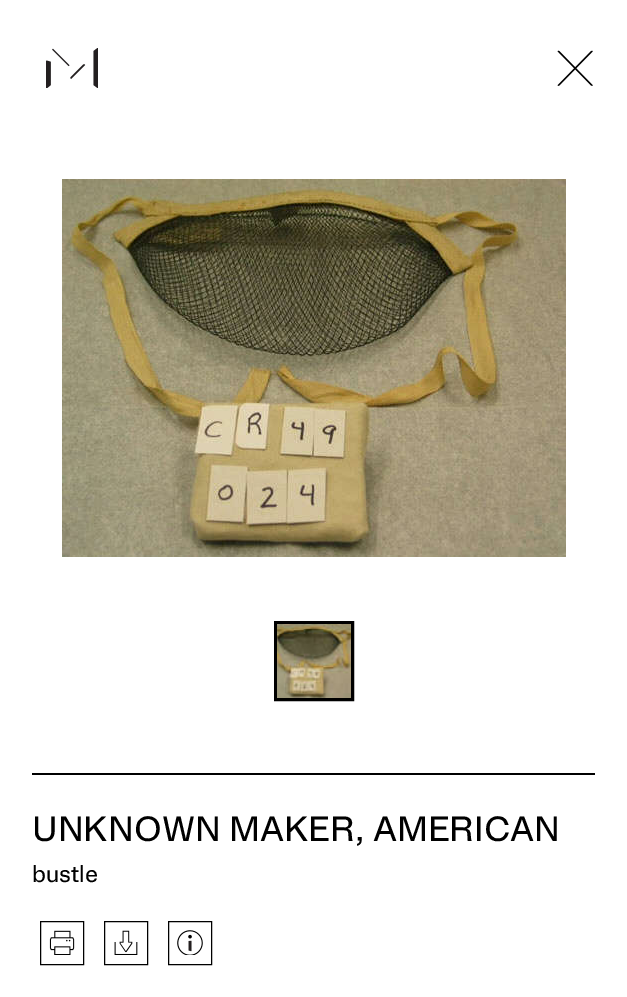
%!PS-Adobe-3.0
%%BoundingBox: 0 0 627 997
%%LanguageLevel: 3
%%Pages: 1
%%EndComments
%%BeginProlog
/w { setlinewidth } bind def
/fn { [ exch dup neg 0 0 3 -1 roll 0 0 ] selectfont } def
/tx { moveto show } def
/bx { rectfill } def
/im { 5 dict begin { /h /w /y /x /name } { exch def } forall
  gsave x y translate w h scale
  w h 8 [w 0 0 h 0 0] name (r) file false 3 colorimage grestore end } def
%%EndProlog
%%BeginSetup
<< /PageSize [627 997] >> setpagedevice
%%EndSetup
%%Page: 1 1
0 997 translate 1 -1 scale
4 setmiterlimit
1 setgray
0 0 627 997 bx
(image0.raw) 46 48 52 40 im
(image1.raw) 557 50 36 36 im
(image2.raw) 62 179 504 378 im
0 setgray
3 w
275.5 622.5 77 77 rectstroke
(image3.raw) 277 624 74 74 im
32 773 563 2 bx
/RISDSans-Regular 32 fn
(UNKNOWN MAKER, AMERICAN) 32 841 tx
/RISDSans-Regular 21 fn
(bustle) 32 882 tx
1 w
40.5 921.5 43 43 rectstroke
(image4.raw) 49 930 26 25 im
104.5 921.5 43 43 rectstroke
(image5.raw) 114 930 24 25 im
168.5 921.5 43 43 rectstroke
(image6.raw) 177 930 26 25 im
showpage
%%EOF
